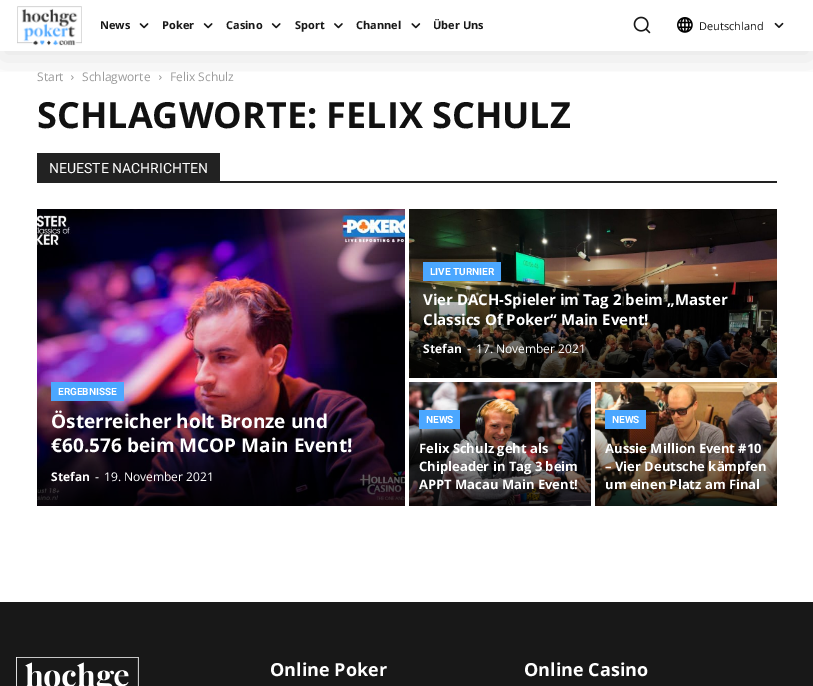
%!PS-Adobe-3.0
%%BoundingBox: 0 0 813 686
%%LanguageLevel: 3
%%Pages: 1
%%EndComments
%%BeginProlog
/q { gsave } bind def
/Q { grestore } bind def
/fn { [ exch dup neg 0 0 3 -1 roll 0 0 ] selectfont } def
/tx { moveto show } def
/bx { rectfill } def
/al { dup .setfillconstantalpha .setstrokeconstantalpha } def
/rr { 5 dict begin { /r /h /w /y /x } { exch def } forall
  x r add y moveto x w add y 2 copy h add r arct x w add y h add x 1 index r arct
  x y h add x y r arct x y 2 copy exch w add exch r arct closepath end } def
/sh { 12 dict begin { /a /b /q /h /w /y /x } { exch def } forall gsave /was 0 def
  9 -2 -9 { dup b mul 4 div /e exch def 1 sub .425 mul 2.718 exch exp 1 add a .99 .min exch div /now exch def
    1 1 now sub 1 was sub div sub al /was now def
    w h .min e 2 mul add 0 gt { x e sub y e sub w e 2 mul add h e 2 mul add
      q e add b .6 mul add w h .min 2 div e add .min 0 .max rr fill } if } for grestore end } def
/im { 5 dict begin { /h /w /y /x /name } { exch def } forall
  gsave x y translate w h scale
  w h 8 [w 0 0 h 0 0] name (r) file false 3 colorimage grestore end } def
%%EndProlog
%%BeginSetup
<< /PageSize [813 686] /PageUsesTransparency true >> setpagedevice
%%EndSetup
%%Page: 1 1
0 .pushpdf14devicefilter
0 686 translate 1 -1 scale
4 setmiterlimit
1 setgray
0 0 813 686 bx
(image9.raw) 71 75 3 5 im
(image9.raw) 159 75 3 5 im
q
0 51 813 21 rectclip
0 setgray
0 8 813 51 0 16 0.1 sh
Q
(image0.raw) 17 6 65 40 im
/OpenSans-Bold 11 fn
0.094 setgray
(News) 100 29 tx
(image1.raw) 139 23 10 6 im
(Poker) 162 29 tx
(image2.raw) 203 23 10 6 im
(Casino) 226 29 tx
(image3.raw) 271 23 10 6 im
(Sport) 295 29 tx
(image4.raw) 334 23 9 6 im
(Channel) 356 29 tx
(image5.raw) 411 23 10 6 im
(Über Uns) 433 29 tx
(image6.raw) 633 16 18 18 im
(image7.raw) 677 17 16 16 im
/OpenSans-Regular 11 fn
(Deutschland) 699 30 tx
(image8.raw) 774 22 10 6 im
/OpenSans-Regular 12 fn
0.608 setgray
(Start) 37 81 tx
(Schlagworte) 82 81 tx
(Felix Schulz) 170 81 tx
/OpenSans-Bold 36 fn
0.067 setgray
(SCHLAGWORTE: FELIX SCHULZ) 37 128 tx
0.133 setgray
37 181 740 2 bx
37 153 183 28 bx
/Roboto-Regular 14 fn
1 setgray
(NEUESTE NACHRICHTEN) 49 173 tx
(image10.raw) 409 209 368 169 im
0.294 0.655 1 setrgbcolor
423 262 78 19 bx
/Roboto-Bold 10 fn
1 setgray
(LIVE TURNIER) 430 275 tx
/OpenSans-Bold 15 fn
(Vier DACH-Spieler im Tag 2 beim „Master) 423 305 tx
(Classics Of Poker“ Main Event!) 423 325 tx
/OpenSans-Bold 12 fn
(Stefan) 423 353 tx
/OpenSans-Regular 12 fn
(-) 467 353 tx
(17. November 2021) 476 353 tx
(image11.raw) 37 209 368 297 im
0.294 0.655 1 setrgbcolor
51 382 73 19 bx
/Roboto-Bold 10 fn
1 setgray
(ERGEBNISSE) 58 395 tx
/OpenSans-Bold 19 fn
(Österreicher holt Bronze und) 51 428 tx
(€60.576 beim MCOP Main Event!) 51 452 tx
/OpenSans-Bold 12 fn
(Stefan) 51 481 tx
/OpenSans-Regular 12 fn
(-) 95 481 tx
(19. November 2021) 104 481 tx
(image12.raw) 409 382 182 124 im
0.294 0.655 1 setrgbcolor
419 410 41 19 bx
/Roboto-Bold 10 fn
1 setgray
(NEWS) 426 423 tx
/OpenSans-Bold 13 fn
(Felix Schulz geht als) 419 453 tx
(Chipleader in Tag 3 beim) 419 471 tx
(APPT Macau Main Event!) 419 489 tx
(image13.raw) 595 382 182 124 im
0.294 0.655 1 setrgbcolor
605 410 41 19 bx
/Roboto-Bold 10 fn
1 setgray
(NEWS) 612 423 tx
/OpenSans-Bold 13 fn
(Aussie Million Event #10) 605 453 tx
(– Vier Deutsche kämpfen) 605 471 tx
(um einen Platz am Final) 605 489 tx
0.094 setgray
0 602 813 84 bx
(image14.raw) 16 657 123 29 im
/OpenSans-Bold 18 fn
1 setgray
(Online Poker) 270 676 tx
(Online Casino) 524 676 tx
.poppdf14devicefilter showpage
%%EOF
